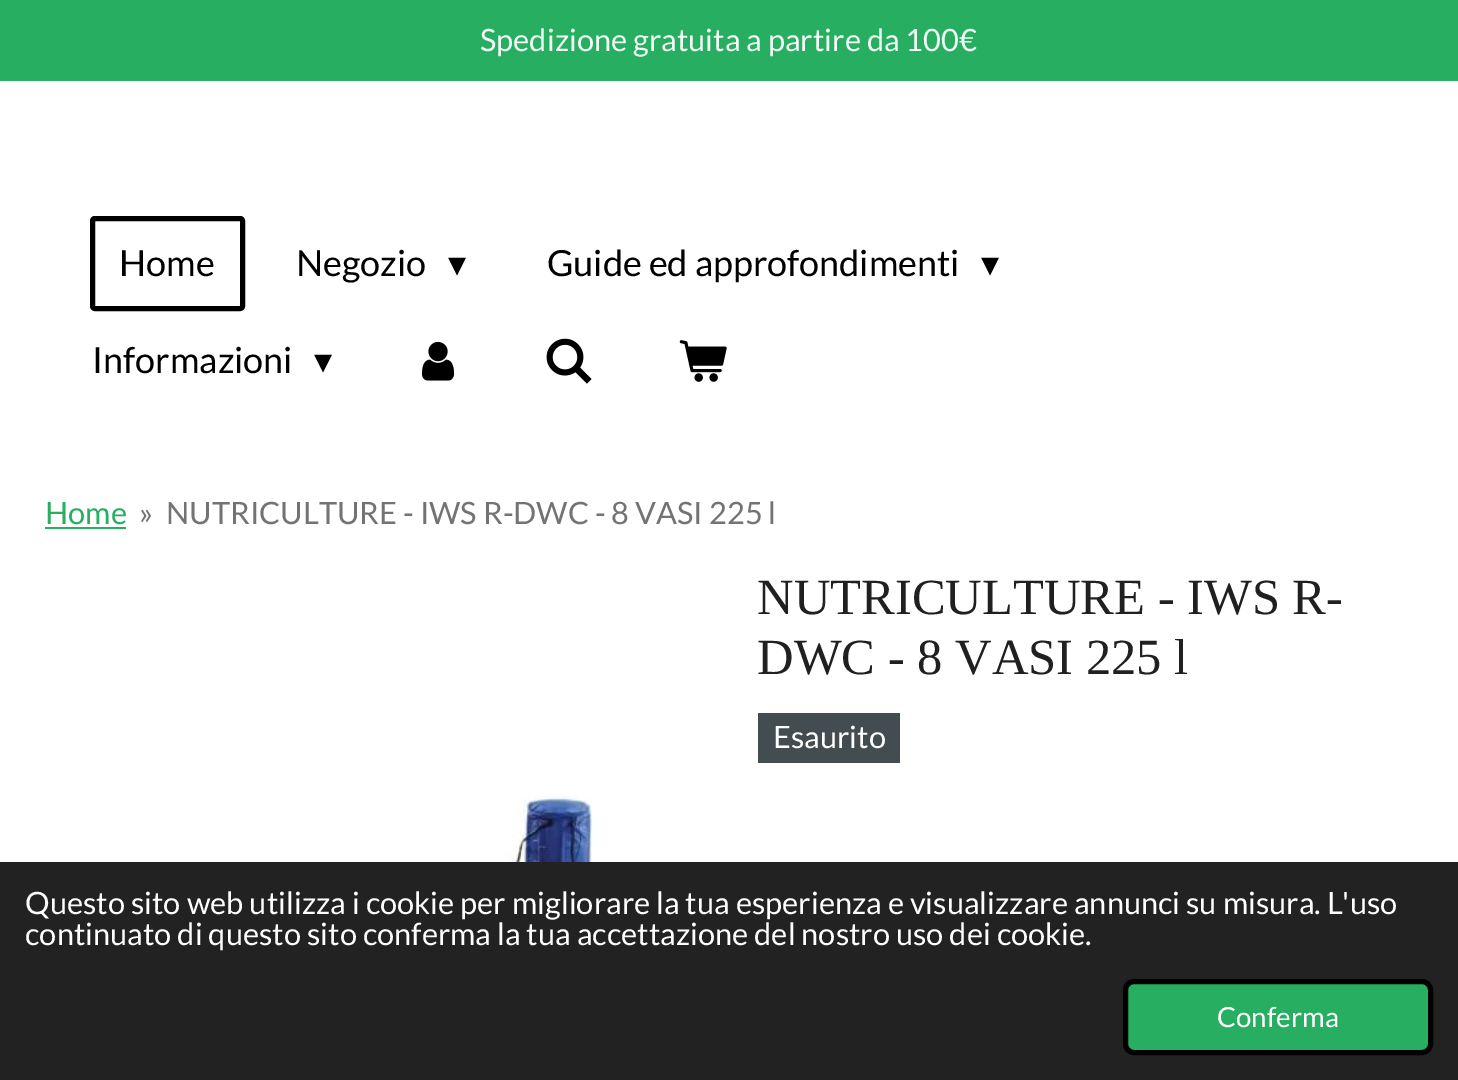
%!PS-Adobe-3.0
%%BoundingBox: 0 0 1458 1080
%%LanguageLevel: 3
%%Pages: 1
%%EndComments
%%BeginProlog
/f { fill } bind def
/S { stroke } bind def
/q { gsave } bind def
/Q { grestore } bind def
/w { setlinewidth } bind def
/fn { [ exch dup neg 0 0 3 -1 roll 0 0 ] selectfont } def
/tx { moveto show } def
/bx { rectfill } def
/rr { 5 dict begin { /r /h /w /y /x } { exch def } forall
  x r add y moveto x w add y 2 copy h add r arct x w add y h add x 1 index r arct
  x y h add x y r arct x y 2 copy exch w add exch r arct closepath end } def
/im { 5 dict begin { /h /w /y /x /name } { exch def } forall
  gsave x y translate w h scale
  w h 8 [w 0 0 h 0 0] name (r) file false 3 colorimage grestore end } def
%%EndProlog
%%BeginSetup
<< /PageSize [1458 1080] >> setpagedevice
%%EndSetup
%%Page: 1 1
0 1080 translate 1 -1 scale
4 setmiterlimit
1 setgray
0 0 1458 1080 bx
0.153 0.682 0.376 setrgbcolor
0 0 1458 81 bx
/Lato-Regular 30.8 fn
0.949 0.988 0.965 setrgbcolor
(Spedizione gratuita a partire da 100€) 480 51 tx
0 setgray
5 w
92.5 218.5 150 90 2.5 rr S
/Lato-Regular 36 fn
(Home) 119 276 tx
(Negozio) 296 276 tx
/DejaVuSans-Regular 36 fn
(▾) 448 276 tx
/Lato-Regular 36 fn
(Guide ed approfondimenti) 547 276 tx
/DejaVuSans-Regular 36 fn
(▾) 981 276 tx
/Lato-Regular 36 fn
(Informazioni) 92 373 tx
/DejaVuSans-Regular 36 fn
(▾) 314 373 tx
(image0.raw) 421 341 34 40 im
(image1.raw) 546 338 46 46 im
(image2.raw) 679 340 48 42 im
/Lato-Regular 30.8 fn
0.153 0.682 0.376 setrgbcolor
(Home) 45 524 tx
45 527 81 2 bx
0.451 setgray
(») 139 524 tx
(NUTRICULTURE - IWS R-DWC - 8 VASI 225 l) 166 524 tx
/LiberationSerif-Regular 50.6 fn
0.125 setgray
(NUTRICULTURE - IWS R-) 757 614 tx
(DWC - 8 VASI 225 l) 757 674 tx
0.259 0.298 0.318 setrgbcolor
758 713 142 50 bx
/Lato-Regular 30.8 fn
1 setgray
(Esaurito) 773 748 tx
(image3.raw) 161 795 432 67 im
0.133 setgray
0 862 1458 218 bx
1 setgray
(Questo sito web utilizza i cookie per migliorare la tua esperienza e visualizzare annunci su misura. L'uso) 25 914 tx
(continuato di questo sito conferma la tua accettazione del nostro uso dei cookie.) 25 945 tx
0.153 0.682 0.376 setrgbcolor
1125.5 981.5 305 71 8.5 rr q f Q
0 setgray
S
/Lato-Regular 27.75 fn
1 setgray
(Conferma) 1217 1027 tx
showpage
%%EOF
